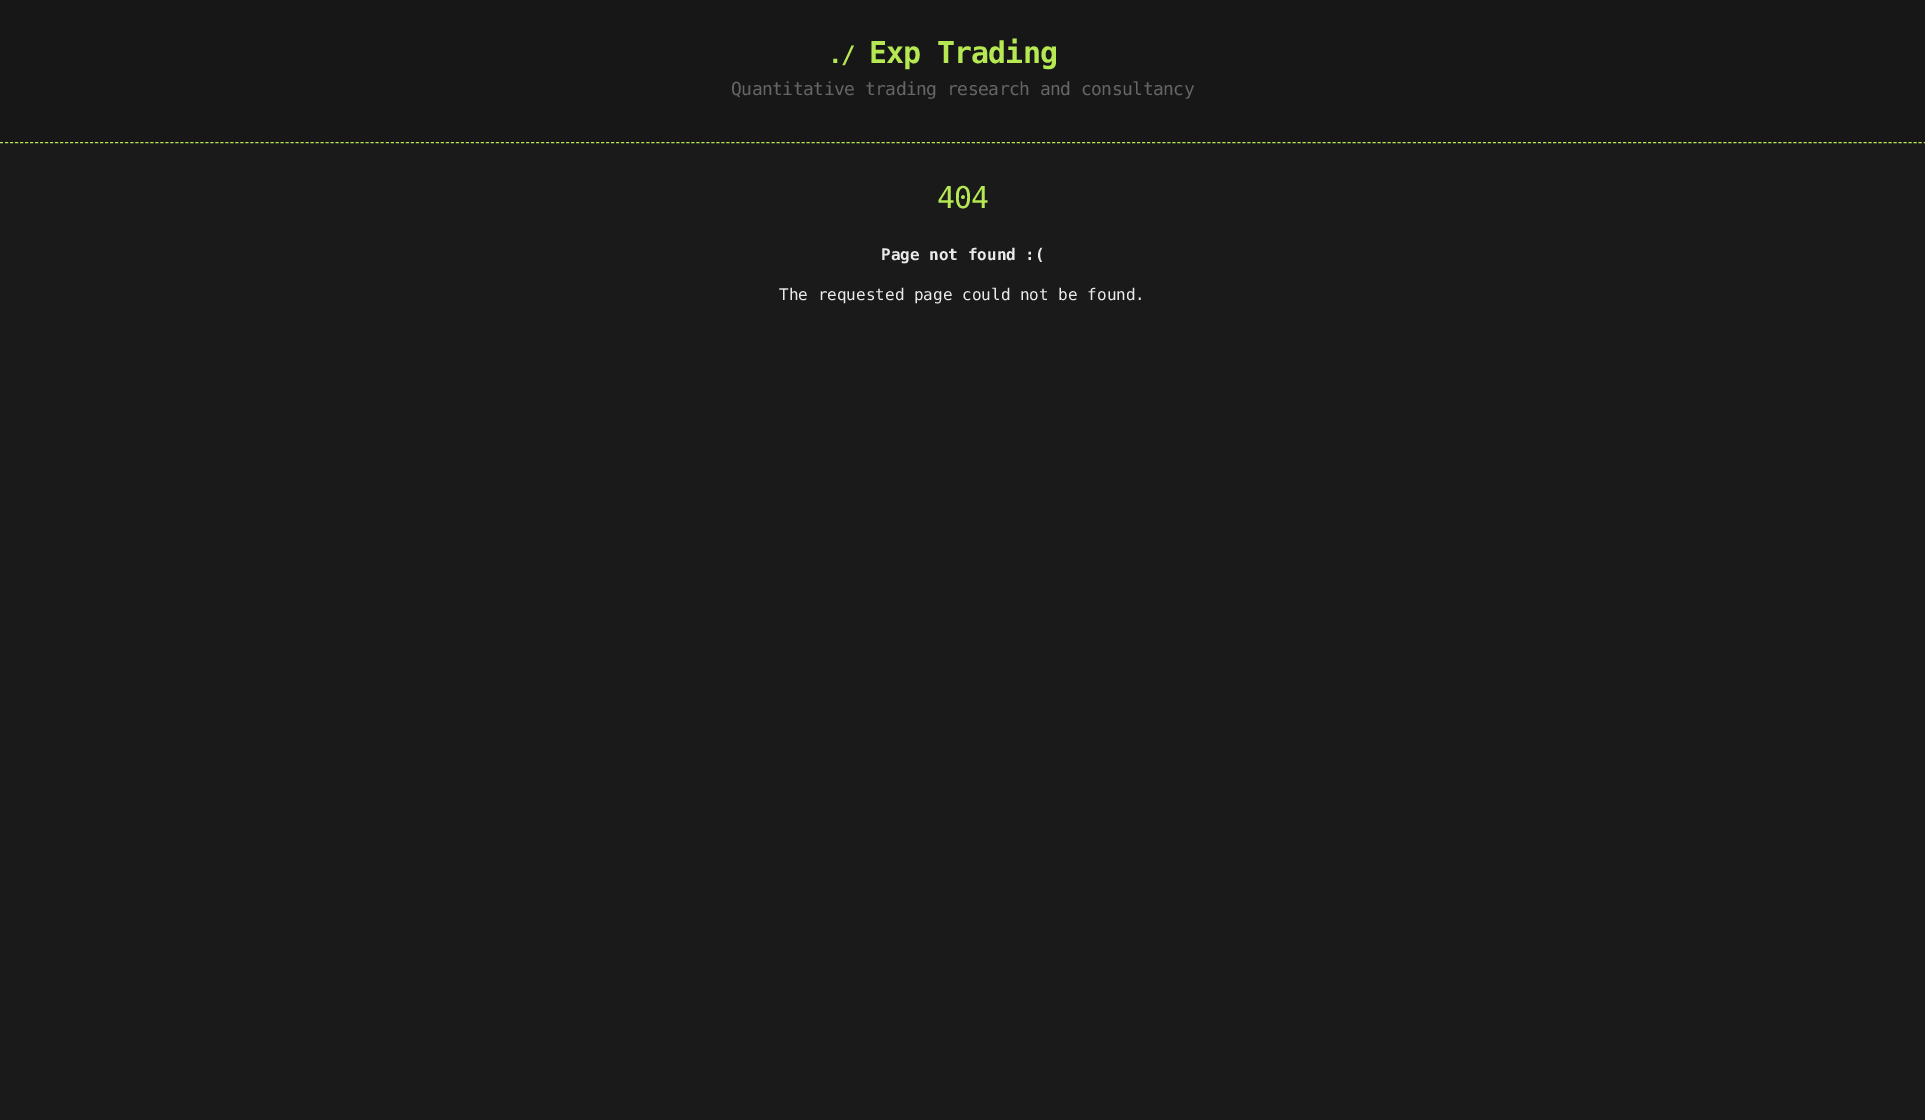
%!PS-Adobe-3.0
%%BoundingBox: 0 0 1925 1120
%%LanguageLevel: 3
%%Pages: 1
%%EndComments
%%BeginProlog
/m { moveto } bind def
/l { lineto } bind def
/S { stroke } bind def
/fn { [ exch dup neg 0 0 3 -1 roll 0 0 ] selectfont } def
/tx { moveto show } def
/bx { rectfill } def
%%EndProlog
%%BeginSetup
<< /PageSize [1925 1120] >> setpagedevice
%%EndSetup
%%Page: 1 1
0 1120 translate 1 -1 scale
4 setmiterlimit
0.102 setgray
0 0 1925 1120 bx
0.09 setgray
0 0 1925 143 bx
0.71 0.91 0.325 setrgbcolor
[3 2.01] 0 setdash
0 142.5 m 1925 142.5 l S
/DejaVuSansMono-Bold 24 fn
828 63 m -1 0 (./) ashow
/DejaVuSansMono-Bold 30 fn
869 63 m -1 0 (Exp Trading) ashow
/DejaVuSansMono-Regular 18 fn
0.4 setgray
731 95 m -0.55 0 (Quantitative trading research and consultancy) ashow
/DejaVuSansMono-Regular 30 fn
0.71 0.91 0.325 setrgbcolor
937 208 m -1 0 (404) ashow
/DejaVuSansMono-Bold 16 fn
0.918 setgray
(Page not found :\() 881 260 tx
/DejaVuSansMono-Regular 16 fn
(The requested page could not be found.) 779 300 tx
showpage
%%EOF
